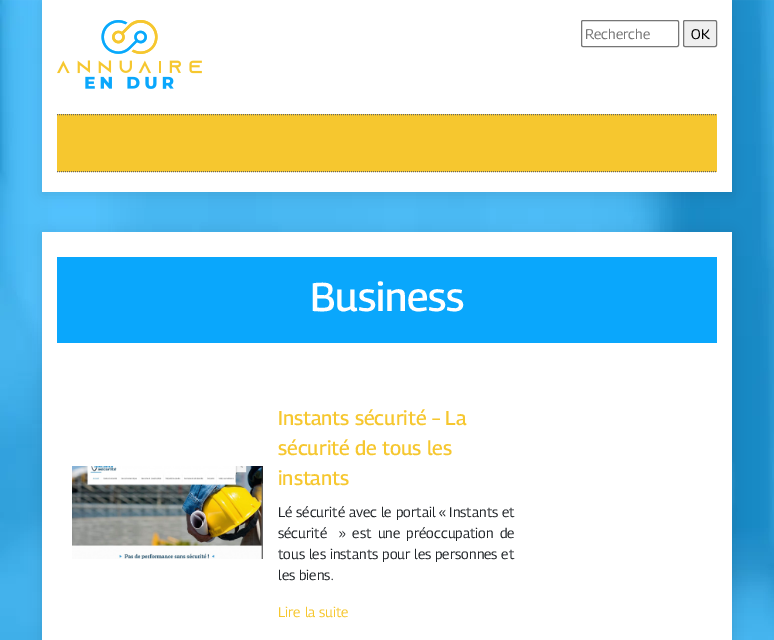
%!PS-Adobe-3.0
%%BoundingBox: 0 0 774 640
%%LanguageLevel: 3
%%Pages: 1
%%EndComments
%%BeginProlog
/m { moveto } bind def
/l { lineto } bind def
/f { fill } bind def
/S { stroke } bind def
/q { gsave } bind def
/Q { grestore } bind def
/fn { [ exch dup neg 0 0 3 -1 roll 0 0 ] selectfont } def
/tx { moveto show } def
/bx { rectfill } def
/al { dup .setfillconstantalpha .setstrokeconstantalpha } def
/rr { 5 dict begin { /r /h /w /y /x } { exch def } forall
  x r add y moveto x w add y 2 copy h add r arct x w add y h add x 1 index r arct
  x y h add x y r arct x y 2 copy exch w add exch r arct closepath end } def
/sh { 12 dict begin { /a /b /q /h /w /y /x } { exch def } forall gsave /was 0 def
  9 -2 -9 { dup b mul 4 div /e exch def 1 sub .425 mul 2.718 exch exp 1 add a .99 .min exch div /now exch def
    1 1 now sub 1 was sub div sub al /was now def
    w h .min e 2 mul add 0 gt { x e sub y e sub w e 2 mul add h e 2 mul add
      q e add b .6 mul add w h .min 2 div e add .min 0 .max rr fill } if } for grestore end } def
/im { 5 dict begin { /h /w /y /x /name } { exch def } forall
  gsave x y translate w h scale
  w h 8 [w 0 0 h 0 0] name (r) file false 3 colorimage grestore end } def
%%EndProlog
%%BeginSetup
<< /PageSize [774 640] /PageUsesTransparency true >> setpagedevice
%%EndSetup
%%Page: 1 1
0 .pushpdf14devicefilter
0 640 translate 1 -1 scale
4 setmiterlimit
1 setgray
0 0 774 640 bx
(image0.raw) 0 0 774 640 im
0 setgray
42 2 690 192 0 6.5 0.1 sh
1 setgray
42 0 690 192 bx
(image1.raw) 57 20 145 69 im
0.463 setgray
581.5 20.5 97 26 1.5 rr S
/Georama-Regular 14 fn
0.459 setgray
(Recherche) 585 39 tx
0.937 setgray
683.5 20.5 33 26 1.5 rr q f Q
0.463 setgray
S
0 setgray
(OK) 691 39 tx
0.965 0.78 0.184 setrgbcolor
57 114 660 58 bx
0.4 setgray
[1 1] 0 setdash
57 114.5 m 717 114.5 l S
57 171.5 m 717 171.5 l S
0 setgray
42 234 690 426 0 6.5 0.1 sh
1 setgray
42 232 690 408 bx
0.039 0.655 0.988 setrgbcolor
57 257 660 86 bx
/Georama-Medium 40 fn
1 setgray
(Business) 310 311 tx
(image2.raw) 72 466 191 93 im
/Georama-Medium 20 fn
0.965 0.78 0.184 setrgbcolor
(Instants sécurité – La) 278 425 tx
(sécurité de tous les) 278 455 tx
(instants) 278 485 tx
/Georama-Regular 14 fn
0.129 0.145 0.161 setrgbcolor
(Lé sécurité avec le portail « Instants et) 278 517 tx
278 538 m 2.5 0 32 (sécurité  » est une préoccupation de) widthshow
(tous les instants pour les personnes et) 278 559 tx
(les biens.) 278 580 tx
0.965 0.78 0.184 setrgbcolor
(Lire la suite) 278 617 tx
.poppdf14devicefilter showpage
%%EOF
